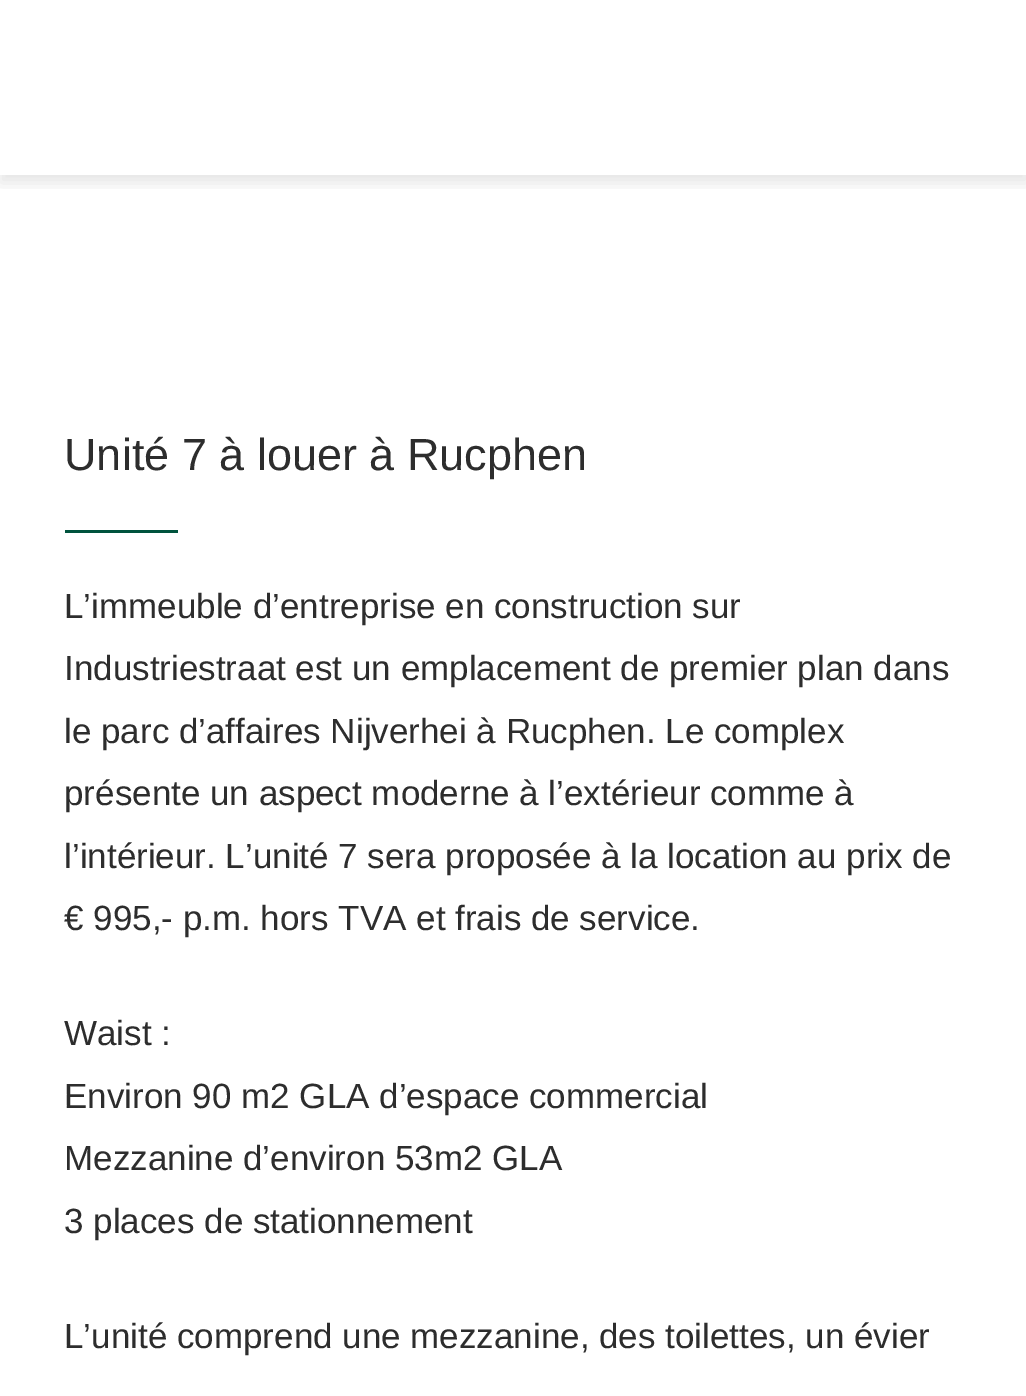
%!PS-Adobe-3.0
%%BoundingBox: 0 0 1026 1396
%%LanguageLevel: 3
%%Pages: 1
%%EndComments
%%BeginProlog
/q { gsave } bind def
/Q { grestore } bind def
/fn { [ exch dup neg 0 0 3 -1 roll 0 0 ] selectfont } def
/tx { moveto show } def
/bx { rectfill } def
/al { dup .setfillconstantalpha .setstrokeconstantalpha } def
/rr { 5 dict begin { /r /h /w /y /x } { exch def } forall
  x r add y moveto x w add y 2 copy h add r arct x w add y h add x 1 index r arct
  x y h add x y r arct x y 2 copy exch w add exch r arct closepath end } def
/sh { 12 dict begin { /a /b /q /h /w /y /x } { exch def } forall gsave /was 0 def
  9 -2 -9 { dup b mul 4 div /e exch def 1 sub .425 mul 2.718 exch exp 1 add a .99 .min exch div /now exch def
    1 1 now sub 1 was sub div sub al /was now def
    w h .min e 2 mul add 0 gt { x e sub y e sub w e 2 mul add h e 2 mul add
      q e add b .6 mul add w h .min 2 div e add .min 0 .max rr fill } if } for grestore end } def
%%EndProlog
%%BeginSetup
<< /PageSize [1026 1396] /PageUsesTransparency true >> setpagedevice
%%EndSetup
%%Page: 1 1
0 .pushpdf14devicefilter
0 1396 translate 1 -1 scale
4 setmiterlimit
1 setgray
0 0 1026 1396 bx
q
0 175 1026 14 rectclip
0 setgray
0 8 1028 175 0 7.5 0.1 sh
Q
/LiberationSans-Regular 45 fn
0.176 setgray
(Unité 7 à louer à Rucphen) 64 470 tx
0 0.325 0.239 setrgbcolor
65 530 113 3 bx
/LiberationSans-Regular 35 fn
0.176 setgray
(L’immeuble d’entreprise en construction sur) 64 618 tx
(Industriestraat est un emplacement de premier plan dans) 64 680 tx
(le parc d’affaires Nijverhei à Rucphen. Le complex) 64 743 tx
(présente un aspect moderne à l’extérieur comme à) 64 805 tx
(l’intérieur. L’unité 7 sera proposée à la location au prix de) 64 868 tx
(€ 995,- p.m. hors TVA et frais de service.) 64 930 tx
(Waist :) 64 1045 tx
(Environ 90 m2 GLA d’espace commercial) 64 1108 tx
(Mezzanine d’environ 53m2 GLA) 64 1170 tx
(3 places de stationnement) 64 1233 tx
(L’unité comprend une mezzanine, des toilettes, un évier) 64 1348 tx
.poppdf14devicefilter showpage
%%EOF
